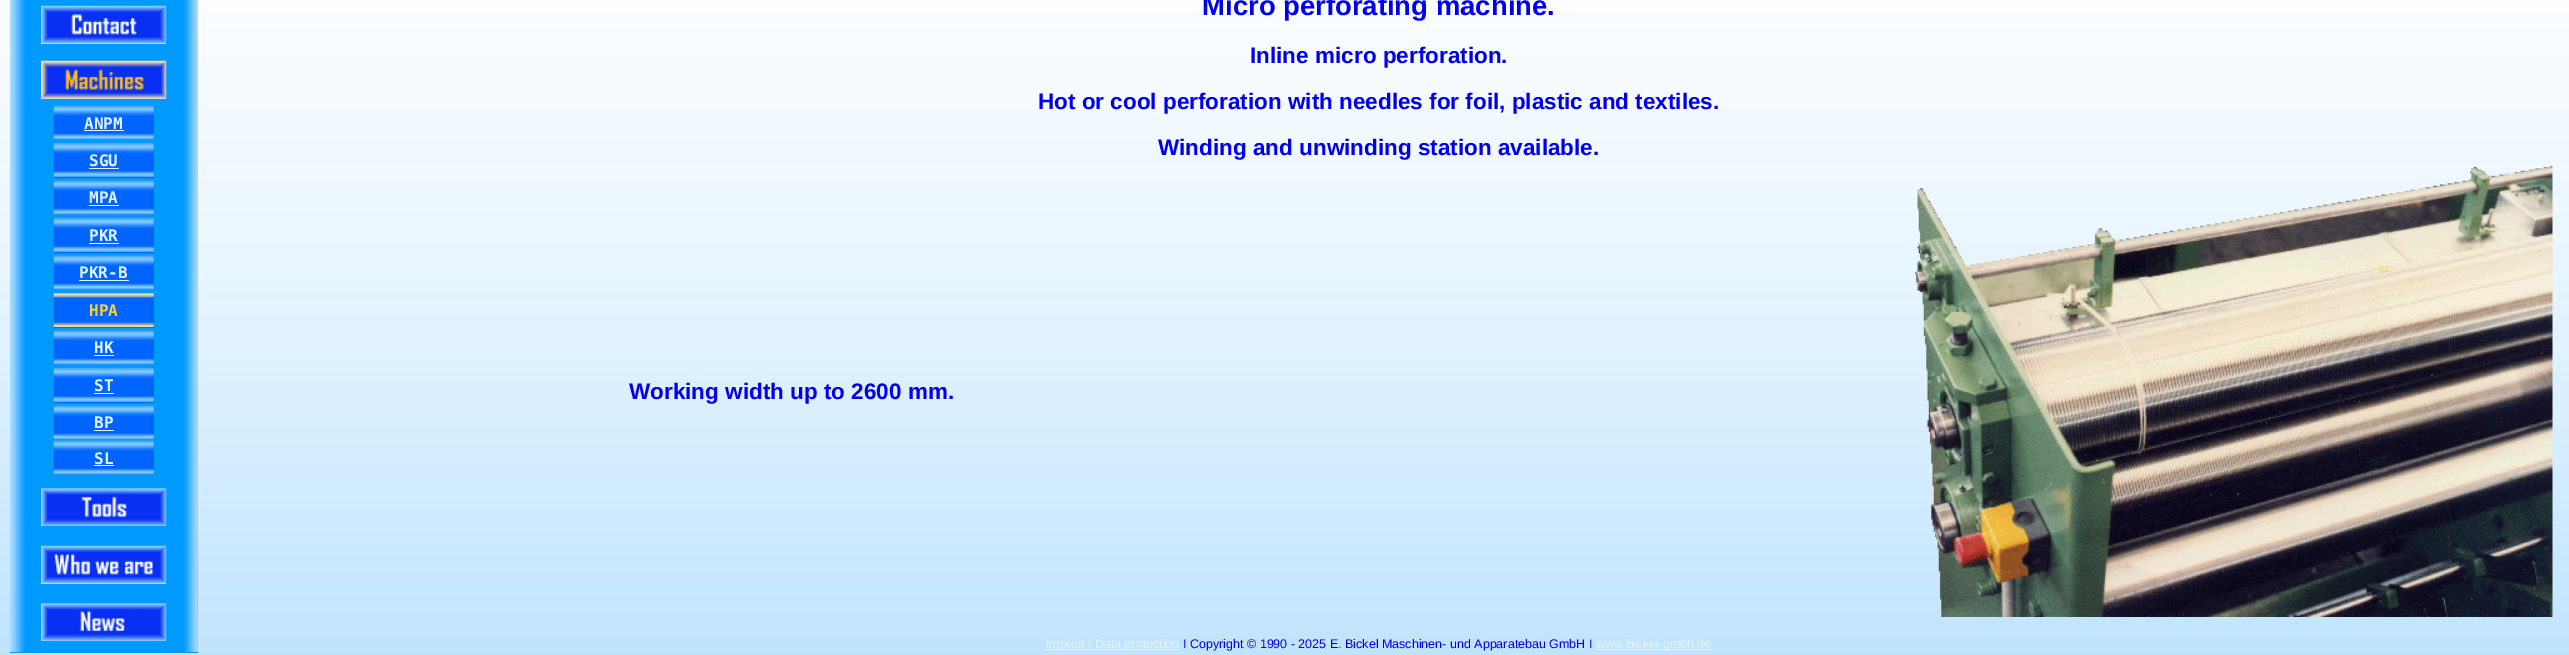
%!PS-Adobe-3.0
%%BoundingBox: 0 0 2569 655
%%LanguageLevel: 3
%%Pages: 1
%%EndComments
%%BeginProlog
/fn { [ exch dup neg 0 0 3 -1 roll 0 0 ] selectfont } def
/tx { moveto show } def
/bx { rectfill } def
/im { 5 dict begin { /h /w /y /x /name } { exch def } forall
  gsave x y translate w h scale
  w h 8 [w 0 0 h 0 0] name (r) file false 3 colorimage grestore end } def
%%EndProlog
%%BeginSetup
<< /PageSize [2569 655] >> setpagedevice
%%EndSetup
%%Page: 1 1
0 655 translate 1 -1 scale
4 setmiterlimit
1 setgray
0 0 2569 655 bx
(image0.raw) 0 0 2569 655 im
0 0.604 1 setrgbcolor
10 0 188 653 bx
(image1.raw) 10 0 188 652 im
0.871 0.875 0.871 setrgbcolor
41 6 125 38 bx
(image2.raw) 41 5 126 39 im
41 61 125 38 bx
(image3.raw) 41 60 126 39 im
0 0.396 1 setrgbcolor
54 106 100 34 bx
(image4.raw) 53 105 101 35 im
/DejaVuSansMono-Bold 16 fn
0.886 0.953 0.996 setrgbcolor
(ANPM) 84 129 tx
84 130 40 1 bx
0 0.396 1 setrgbcolor
54 144 100 34 bx
(image5.raw) 53 143 101 34 im
0.886 0.953 0.996 setrgbcolor
(SGU) 89 166 tx
89 168 30 1 bx
0 0.396 1 setrgbcolor
54 181 100 34 bx
(image6.raw) 53 180 101 35 im
0.886 0.953 0.996 setrgbcolor
(MPA) 89 203 tx
89 205 30 1 bx
0 0.396 1 setrgbcolor
54 219 100 34 bx
(image7.raw) 53 218 101 34 im
0.886 0.953 0.996 setrgbcolor
(PKR) 89 241 tx
89 243 30 1 bx
0 0.396 1 setrgbcolor
54 256 100 34 bx
(image4.raw) 53 255 101 35 im
0.886 0.953 0.996 setrgbcolor
(PKR-B) 79 278 tx
79 280 50 1 bx
0 0.396 1 setrgbcolor
54 294 100 34 bx
(image8.raw) 53 293 101 34 im
1 0.812 0.192 setrgbcolor
(HPA) 89 316 tx
0 0.396 1 setrgbcolor
54 331 100 34 bx
(image9.raw) 53 330 101 35 im
0.886 0.953 0.996 setrgbcolor
(HK) 94 353 tx
94 355 20 1 bx
0 0.396 1 setrgbcolor
54 369 100 34 bx
(image7.raw) 53 368 101 34 im
0.886 0.953 0.996 setrgbcolor
(ST) 94 391 tx
94 393 20 1 bx
0 0.396 1 setrgbcolor
54 406 100 34 bx
(image10.raw) 53 405 101 35 im
0.886 0.953 0.996 setrgbcolor
(BP) 94 428 tx
94 430 20 1 bx
0 0.396 1 setrgbcolor
54 441 100 34 bx
(image11.raw) 53 440 101 35 im
0.886 0.953 0.996 setrgbcolor
(SL) 94 464 tx
94 465 20 1 bx
0.871 0.875 0.871 setrgbcolor
41 489 125 37 bx
(image12.raw) 41 488 126 38 im
41 546 125 38 bx
(image13.raw) 41 545 126 39 im
41 604 125 37 bx
(image14.raw) 41 603 126 38 im
(image15.raw) 197 0 1 652 im
/LiberationSans-Bold 27.5 fn
0 0 0.937 setrgbcolor
(Micro perforating machine.) 1202 15 tx
/LiberationSans-Bold 22.5 fn
(Inline micro perforation.) 1250 63 tx
(Hot or cool perforation with needles for foil, plastic and textiles.) 1038 109 tx
(Winding and unwinding station available.) 1158 155 tx
(Working width up to 2600 mm.) 629 399 tx
(image16.raw) 1915 165 638 452 im
0.886 0.953 0.996 setrgbcolor
1046 649 134 1 bx
/LiberationSans-Regular 12.5 fn
(Imprint / Data protection) 1046 648 tx
0 0 0.937 setrgbcolor
(I Copyright © 1990 - 2025 E. Bickel Maschinen- und Apparatebau GmbH I) 1183 648 tx
0.886 0.953 0.996 setrgbcolor
1596 649 115 1 bx
(www.bickel-gmbh.de) 1596 648 tx
showpage
%%EOF
